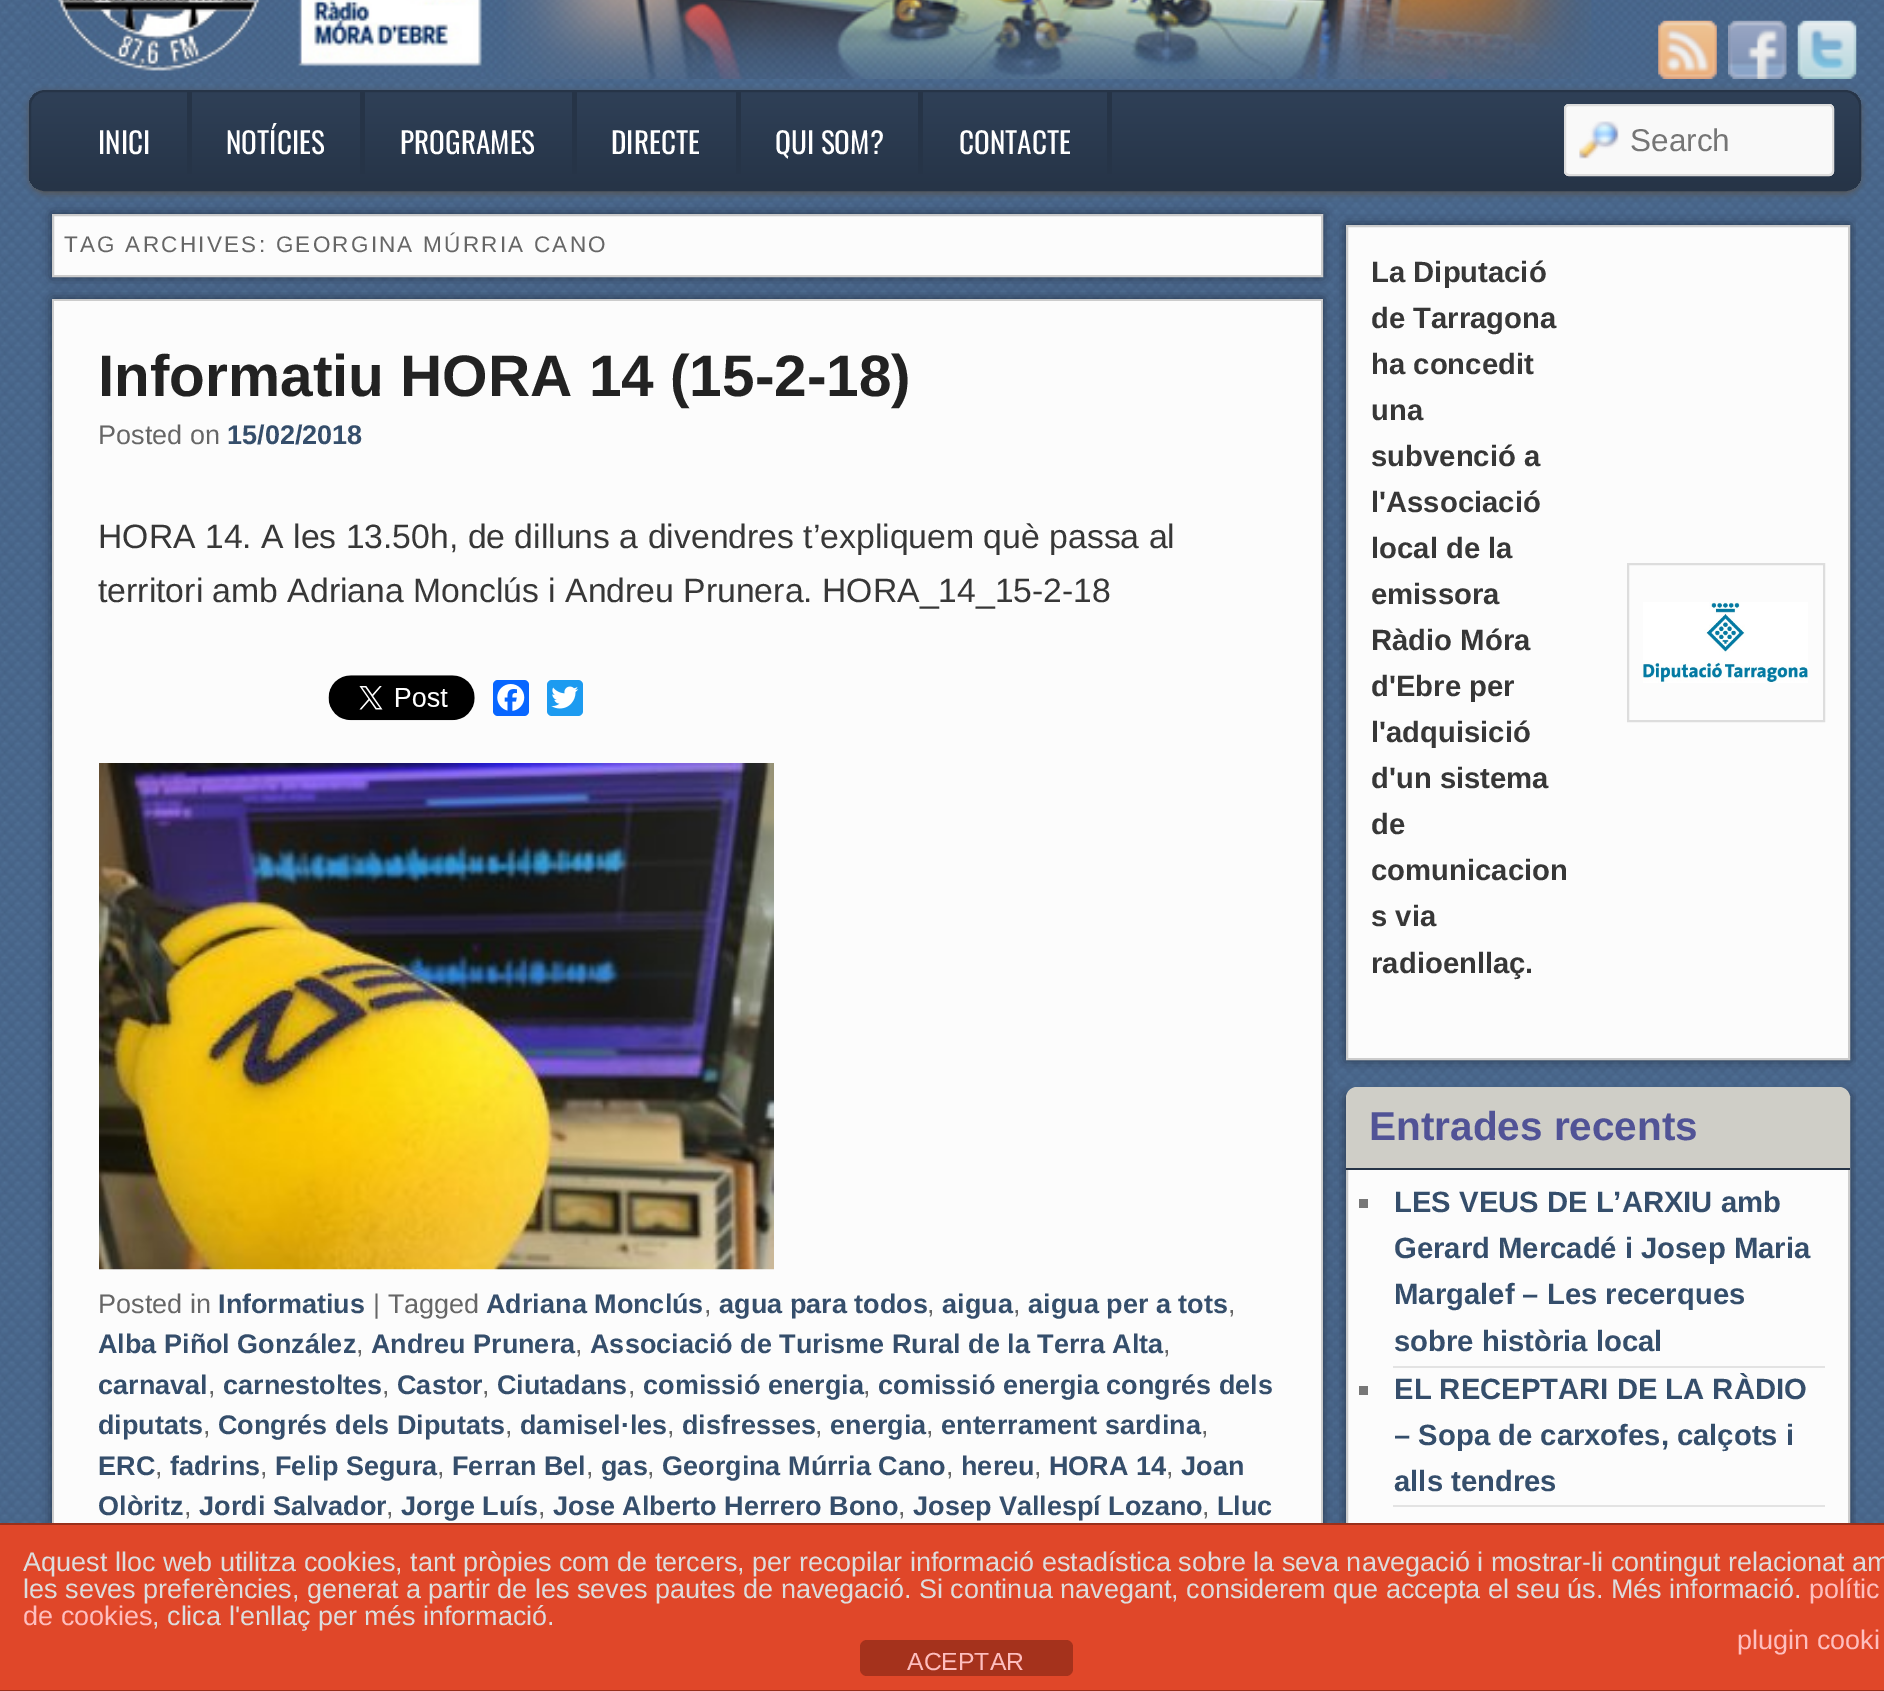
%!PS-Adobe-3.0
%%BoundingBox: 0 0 1884 1691
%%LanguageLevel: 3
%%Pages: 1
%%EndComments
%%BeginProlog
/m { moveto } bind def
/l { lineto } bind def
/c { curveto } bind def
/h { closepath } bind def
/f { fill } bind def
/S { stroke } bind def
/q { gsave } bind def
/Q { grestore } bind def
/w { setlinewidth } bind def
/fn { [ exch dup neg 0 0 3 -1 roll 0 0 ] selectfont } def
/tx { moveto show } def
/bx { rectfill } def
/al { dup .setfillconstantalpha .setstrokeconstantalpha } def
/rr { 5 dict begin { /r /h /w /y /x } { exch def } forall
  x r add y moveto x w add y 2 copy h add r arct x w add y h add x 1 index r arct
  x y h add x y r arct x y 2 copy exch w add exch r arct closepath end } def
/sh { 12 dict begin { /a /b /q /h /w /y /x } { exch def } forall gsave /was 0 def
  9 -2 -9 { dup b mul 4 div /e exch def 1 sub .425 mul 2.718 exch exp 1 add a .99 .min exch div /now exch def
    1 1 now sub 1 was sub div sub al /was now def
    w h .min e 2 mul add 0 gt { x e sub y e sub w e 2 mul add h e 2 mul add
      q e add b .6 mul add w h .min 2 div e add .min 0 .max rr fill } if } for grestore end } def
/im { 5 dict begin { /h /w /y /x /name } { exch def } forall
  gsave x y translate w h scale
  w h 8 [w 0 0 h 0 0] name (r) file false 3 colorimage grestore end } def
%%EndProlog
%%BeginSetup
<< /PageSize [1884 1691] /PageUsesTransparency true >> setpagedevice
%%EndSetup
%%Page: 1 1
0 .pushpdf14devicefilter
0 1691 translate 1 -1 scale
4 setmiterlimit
1 setgray
0 0 1884 1691 bx
(image0.raw) 0 0 1884 1523 im
(image1.raw) 29 0 1827 79 im
(image2.raw) 1658 20 59 59 im
(image3.raw) 1728 20 59 59 im
(image4.raw) 1797 20 60 59 im
0.333 setgray
29 92 1832 102 16 3.5 1 sh
q
29 90 1832 101 16 rr clip newpath
q 29 92 m 1861 92 l 1861 189 l 29 189 l h clip newpath
<< /ShadingType 2 /ColorSpace /DeviceRGB /Coords [945 92 945 189] /Extend [true true] /Function << /FunctionType 2 /Domain [0 1] /C0 [0.184 0.251 0.341] /C1 [0.149 0.204 0.278] /N 1 >> >> shfill Q
Q
0.149 0.204 0.278 setrgbcolor
2 w
30 91 1830 99 15 rr S
187 92 5 82 bx
/Oswald-Regular 29.25 fn
1 setgray
(INICI) 98 154 tx
0.149 0.204 0.278 setrgbcolor
360 92 5 82 bx
1 setgray
(NOTÍCIES) 226 154 tx
0.149 0.204 0.278 setrgbcolor
572 92 5 82 bx
1 setgray
(PROGRAMES) 400 154 tx
0.149 0.204 0.278 setrgbcolor
736 92 5 82 bx
1 setgray
(DIRECTE) 611 154 tx
0.149 0.204 0.278 setrgbcolor
918 92 5 82 bx
1 setgray
(QUI SOM?) 775 154 tx
0.149 0.204 0.278 setrgbcolor
1107 92 5 82 bx
1 setgray
(CONTACTE) 959 154 tx
0.976 setgray
1564 104 270 72 5 rr f
(image5.raw) 1579 121 40 38 im
0.867 setgray
1565 105 268 70 4 rr S
/LiberationSans-Regular 31.5 fn
0.459 setgray
(Search) 1630 151 tx
0.149 0.204 0.278 setrgbcolor
52 214 1271 63 0 5.5 1 sh
0.988 setgray
53 215 m 1322 215 l 1322 276 l 53 276 l h q f Q
0.8 setgray
S
/LiberationSans-Regular 22.5 fn
0.4 setgray
64 252 m 2.25 0 (TAG ARCHIVES: GEORGINA MÚRRIA CANO) ashow
0.149 0.204 0.278 setrgbcolor
52 299 1271 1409 0 5.5 1 sh
0.988 setgray
54 301 1267 1222 bx
0.8 setgray
52 299 1271 2 bx
1321 299 2 1224 bx
52 299 2 1224 bx
/LiberationSans-Bold 58.5 fn
0.133 setgray
(Informatiu HORA 14 \(15-2-18\)) 98 396 tx
/LiberationSans-Regular 27 fn
0.4 setgray
(Posted on) 98 444 tx
/LiberationSans-Bold 27 fn
0.208 0.306 0.42 setrgbcolor
(15/02/2018) 227 444 tx
/LiberationSans-Regular 33.75 fn
0.216 setgray
(HORA 14. A les 13.50h, de dilluns a divendres t’expliquem què passa al) 98 548 tx
(territori amb Adriana Monclús i Andreu Prunera. HORA_14_15-2-18) 98 602 tx
(image6.raw) 328 675 147 46 im
0.031 0.4 1 setrgbcolor
493 680 36 36 5 rr f
(image7.raw) 497 684 28 27 im
0.114 0.608 0.941 setrgbcolor
547 680 36 36 5 rr f
(image8.raw) 551 686 28 23 im
(image9.raw) 99 763 675 507 im
/LiberationSans-Regular 27 fn
0.4 setgray
(Posted in) 98 1313 tx
/LiberationSans-Bold 27 fn
0.208 0.306 0.42 setrgbcolor
(Informatius) 218 1313 tx
/LiberationSans-Regular 27 fn
0.4 setgray
(| Tagged) 373 1313 tx
/LiberationSans-Bold 27 fn
0.208 0.306 0.42 setrgbcolor
(Adriana Monclús) 486 1313 tx
/LiberationSans-Regular 27 fn
0.4 setgray
(,) 704 1313 tx
/LiberationSans-Bold 27 fn
0.208 0.306 0.42 setrgbcolor
(agua para todos) 719 1313 tx
/LiberationSans-Regular 27 fn
0.4 setgray
(,) 927 1313 tx
/LiberationSans-Bold 27 fn
0.208 0.306 0.42 setrgbcolor
(aigua) 942 1313 tx
/LiberationSans-Regular 27 fn
0.4 setgray
(,) 1013 1313 tx
/LiberationSans-Bold 27 fn
0.208 0.306 0.42 setrgbcolor
(aigua per a tots) 1028 1313 tx
/LiberationSans-Regular 27 fn
0.4 setgray
(,) 1228 1313 tx
/LiberationSans-Bold 27 fn
0.208 0.306 0.42 setrgbcolor
(Alba Piñol González) 98 1353 tx
/LiberationSans-Regular 27 fn
0.4 setgray
(,) 356 1353 tx
/LiberationSans-Bold 27 fn
0.208 0.306 0.42 setrgbcolor
(Andreu Prunera) 371 1353 tx
/LiberationSans-Regular 27 fn
0.4 setgray
(,) 575 1353 tx
/LiberationSans-Bold 27 fn
0.208 0.306 0.42 setrgbcolor
(Associació de Turisme Rural de la Terra Alta) 590 1353 tx
/LiberationSans-Regular 27 fn
0.4 setgray
(,) 1163 1353 tx
/LiberationSans-Bold 27 fn
0.208 0.306 0.42 setrgbcolor
(carnaval) 98 1394 tx
/LiberationSans-Regular 27 fn
0.4 setgray
(,) 208 1394 tx
/LiberationSans-Bold 27 fn
0.208 0.306 0.42 setrgbcolor
(carnestoltes) 223 1394 tx
/LiberationSans-Regular 27 fn
0.4 setgray
(,) 382 1394 tx
/LiberationSans-Bold 27 fn
0.208 0.306 0.42 setrgbcolor
(Castor) 397 1394 tx
/LiberationSans-Regular 27 fn
0.4 setgray
(,) 482 1394 tx
/LiberationSans-Bold 27 fn
0.208 0.306 0.42 setrgbcolor
(Ciutadans) 497 1394 tx
/LiberationSans-Regular 27 fn
0.4 setgray
(,) 628 1394 tx
/LiberationSans-Bold 27 fn
0.208 0.306 0.42 setrgbcolor
(comissió energia) 643 1394 tx
/LiberationSans-Regular 27 fn
0.4 setgray
(,) 863 1394 tx
/LiberationSans-Bold 27 fn
0.208 0.306 0.42 setrgbcolor
(comissió energia congrés dels) 878 1394 tx
(diputats) 98 1434 tx
/LiberationSans-Regular 27 fn
0.4 setgray
(,) 203 1434 tx
/LiberationSans-Bold 27 fn
0.208 0.306 0.42 setrgbcolor
(Congrés dels Diputats) 218 1434 tx
/LiberationSans-Regular 27 fn
0.4 setgray
(,) 505 1434 tx
/LiberationSans-Bold 27 fn
0.208 0.306 0.42 setrgbcolor
(damisel·les) 520 1434 tx
/LiberationSans-Regular 27 fn
0.4 setgray
(,) 667 1434 tx
/LiberationSans-Bold 27 fn
0.208 0.306 0.42 setrgbcolor
(disfresses) 682 1434 tx
/LiberationSans-Regular 27 fn
0.4 setgray
(,) 815 1434 tx
/LiberationSans-Bold 27 fn
0.208 0.306 0.42 setrgbcolor
(energia) 830 1434 tx
/LiberationSans-Regular 27 fn
0.4 setgray
(,) 926 1434 tx
/LiberationSans-Bold 27 fn
0.208 0.306 0.42 setrgbcolor
(enterrament sardina) 941 1434 tx
/LiberationSans-Regular 27 fn
0.4 setgray
(,) 1201 1434 tx
/LiberationSans-Bold 27 fn
0.208 0.306 0.42 setrgbcolor
(ERC) 98 1475 tx
/LiberationSans-Regular 27 fn
0.4 setgray
(,) 155 1475 tx
/LiberationSans-Bold 27 fn
0.208 0.306 0.42 setrgbcolor
(fadrins) 170 1475 tx
/LiberationSans-Regular 27 fn
0.4 setgray
(,) 260 1475 tx
/LiberationSans-Bold 27 fn
0.208 0.306 0.42 setrgbcolor
(Felip Segura) 275 1475 tx
/LiberationSans-Regular 27 fn
0.4 setgray
(,) 437 1475 tx
/LiberationSans-Bold 27 fn
0.208 0.306 0.42 setrgbcolor
(Ferran Bel) 452 1475 tx
/LiberationSans-Regular 27 fn
0.4 setgray
(,) 586 1475 tx
/LiberationSans-Bold 27 fn
0.208 0.306 0.42 setrgbcolor
(gas) 601 1475 tx
/LiberationSans-Regular 27 fn
0.4 setgray
(,) 647 1475 tx
/LiberationSans-Bold 27 fn
0.208 0.306 0.42 setrgbcolor
(Georgina Múrria Cano) 662 1475 tx
/LiberationSans-Regular 27 fn
0.4 setgray
(,) 946 1475 tx
/LiberationSans-Bold 27 fn
0.208 0.306 0.42 setrgbcolor
(hereu) 961 1475 tx
/LiberationSans-Regular 27 fn
0.4 setgray
(,) 1034 1475 tx
/LiberationSans-Bold 27 fn
0.208 0.306 0.42 setrgbcolor
(HORA 14) 1049 1475 tx
/LiberationSans-Regular 27 fn
0.4 setgray
(,) 1166 1475 tx
/LiberationSans-Bold 27 fn
0.208 0.306 0.42 setrgbcolor
(Joan) 1181 1475 tx
(Olòritz) 98 1515 tx
/LiberationSans-Regular 27 fn
0.4 setgray
(,) 184 1515 tx
/LiberationSans-Bold 27 fn
0.208 0.306 0.42 setrgbcolor
(Jordi Salvador) 199 1515 tx
/LiberationSans-Regular 27 fn
0.4 setgray
(,) 386 1515 tx
/LiberationSans-Bold 27 fn
0.208 0.306 0.42 setrgbcolor
(Jorge Luís) 401 1515 tx
/LiberationSans-Regular 27 fn
0.4 setgray
(,) 538 1515 tx
/LiberationSans-Bold 27 fn
0.208 0.306 0.42 setrgbcolor
(Jose Alberto Herrero Bono) 553 1515 tx
/LiberationSans-Regular 27 fn
0.4 setgray
(,) 898 1515 tx
/LiberationSans-Bold 27 fn
0.208 0.306 0.42 setrgbcolor
(Josep Vallespí Lozano) 913 1515 tx
/LiberationSans-Regular 27 fn
0.4 setgray
(,) 1202 1515 tx
/LiberationSans-Bold 27 fn
0.208 0.306 0.42 setrgbcolor
(Lluc) 1217 1515 tx
q
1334 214 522 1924 rectclip
0.149 0.204 0.278 setrgbcolor
1346 225 504 835 0 5.5 1 sh
Q
0.988 setgray
1347 226 m 1849 226 l 1849 1059 l 1347 1059 l h q f Q
0.8 setgray
S
/LiberationSans-Bold 29.25 fn
0.216 setgray
(La Diputació) 1371 282 tx
(de Tarragona) 1371 328 tx
(ha concedit) 1371 374 tx
(una) 1371 420 tx
(subvenció a) 1371 466 tx
(l'Associació) 1371 512 tx
(local de la) 1371 558 tx
(emissora) 1371 604 tx
(Ràdio Móra) 1371 650 tx
(d'Ebre per) 1371 696 tx
(l'adquisició) 1371 742 tx
(d'un sistema) 1371 788 tx
(de) 1371 834 tx
(comunicacion) 1371 880 tx
(s via) 1371 926 tx
(radioenllaç.) 1371 973 tx
0.867 setgray
1628 564 196 157 rectstroke
(image10.raw) 1643 602 165 81 im
q
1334 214 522 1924 rectclip
0.149 0.204 0.278 setrgbcolor
1346 1096 504 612 0 5.5 1 sh
Q
0.988 setgray
1348 1170 500 353 bx
0.8 setgray
1347 1097 502 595 rectstroke
0.812 0.808 0.78 setrgbcolor
1357 1087 m 1839 1087 l 1845 1087 1850 1092 1850 1098 c 1850 1170 l 1346 1170 l 1346 1098 l 1346 1092 1351 1087 1357 1087 c h f
0.149 0.204 0.278 setrgbcolor
1346 1168 504 2 bx
/LiberationSans-Bold 40.5 fn
0.318 0.325 0.588 setrgbcolor
(Entrades recents) 1369 1140 tx
0.89 setgray
1393 1366 432 2 bx
0.467 setgray
1359 1199 9 9 bx
/LiberationSans-Bold 29.25 fn
0.208 0.306 0.42 setrgbcolor
(LES VEUS DE L’ARXIU amb) 1394 1212 tx
(Gerard Mercadé i Josep Maria) 1394 1258 tx
(Margalef – Les recerques) 1394 1304 tx
(sobre història local) 1394 1351 tx
0.89 setgray
1393 1505 432 2 bx
0.467 setgray
1359 1386 9 9 bx
0.208 0.306 0.42 setrgbcolor
(EL RECEPTARI DE LA RÀDIO) 1394 1399 tx
(– Sopa de carxofes, calçots i) 1394 1445 tx
(alls tendres) 1394 1491 tx
0.878 0.278 0.161 setrgbcolor
0 1525 1884 165 bx
0.6 0.188 0.106 setrgbcolor
0 1523 1884 2 bx
0 1690 1884 1 bx
/LiberationSans-Regular 27 fn
0.867 setgray
(Aquest lloc web utilitza cookies, tant pròpies com de tercers, per recopilar informació estadística sobre la seva navegació i mostrar-li contingut relacionat am) 23 1571 tx
(les seves preferències, generat a partir de les seves pautes de navegació. Si continua navegant, considerem que accepta el seu ús. Més informació.) 23 1598 tx
0.996 0.745 0.745 setrgbcolor
(polític) 1809 1598 tx
(de cookies) 23 1625 tx
0.867 setgray
(, clica l'enllaç per més informació.) 152 1625 tx
0.996 0.745 0.745 setrgbcolor
(plugin cooki) 1737 1649 tx
0.647 0.196 0.11 setrgbcolor
860 1640 213 36 7 rr f
/LiberationSans-Regular 24.75 fn
0.996 0.745 0.745 setrgbcolor
(ACEPTAR) 907 1670 tx
.poppdf14devicefilter showpage
%%EOF
